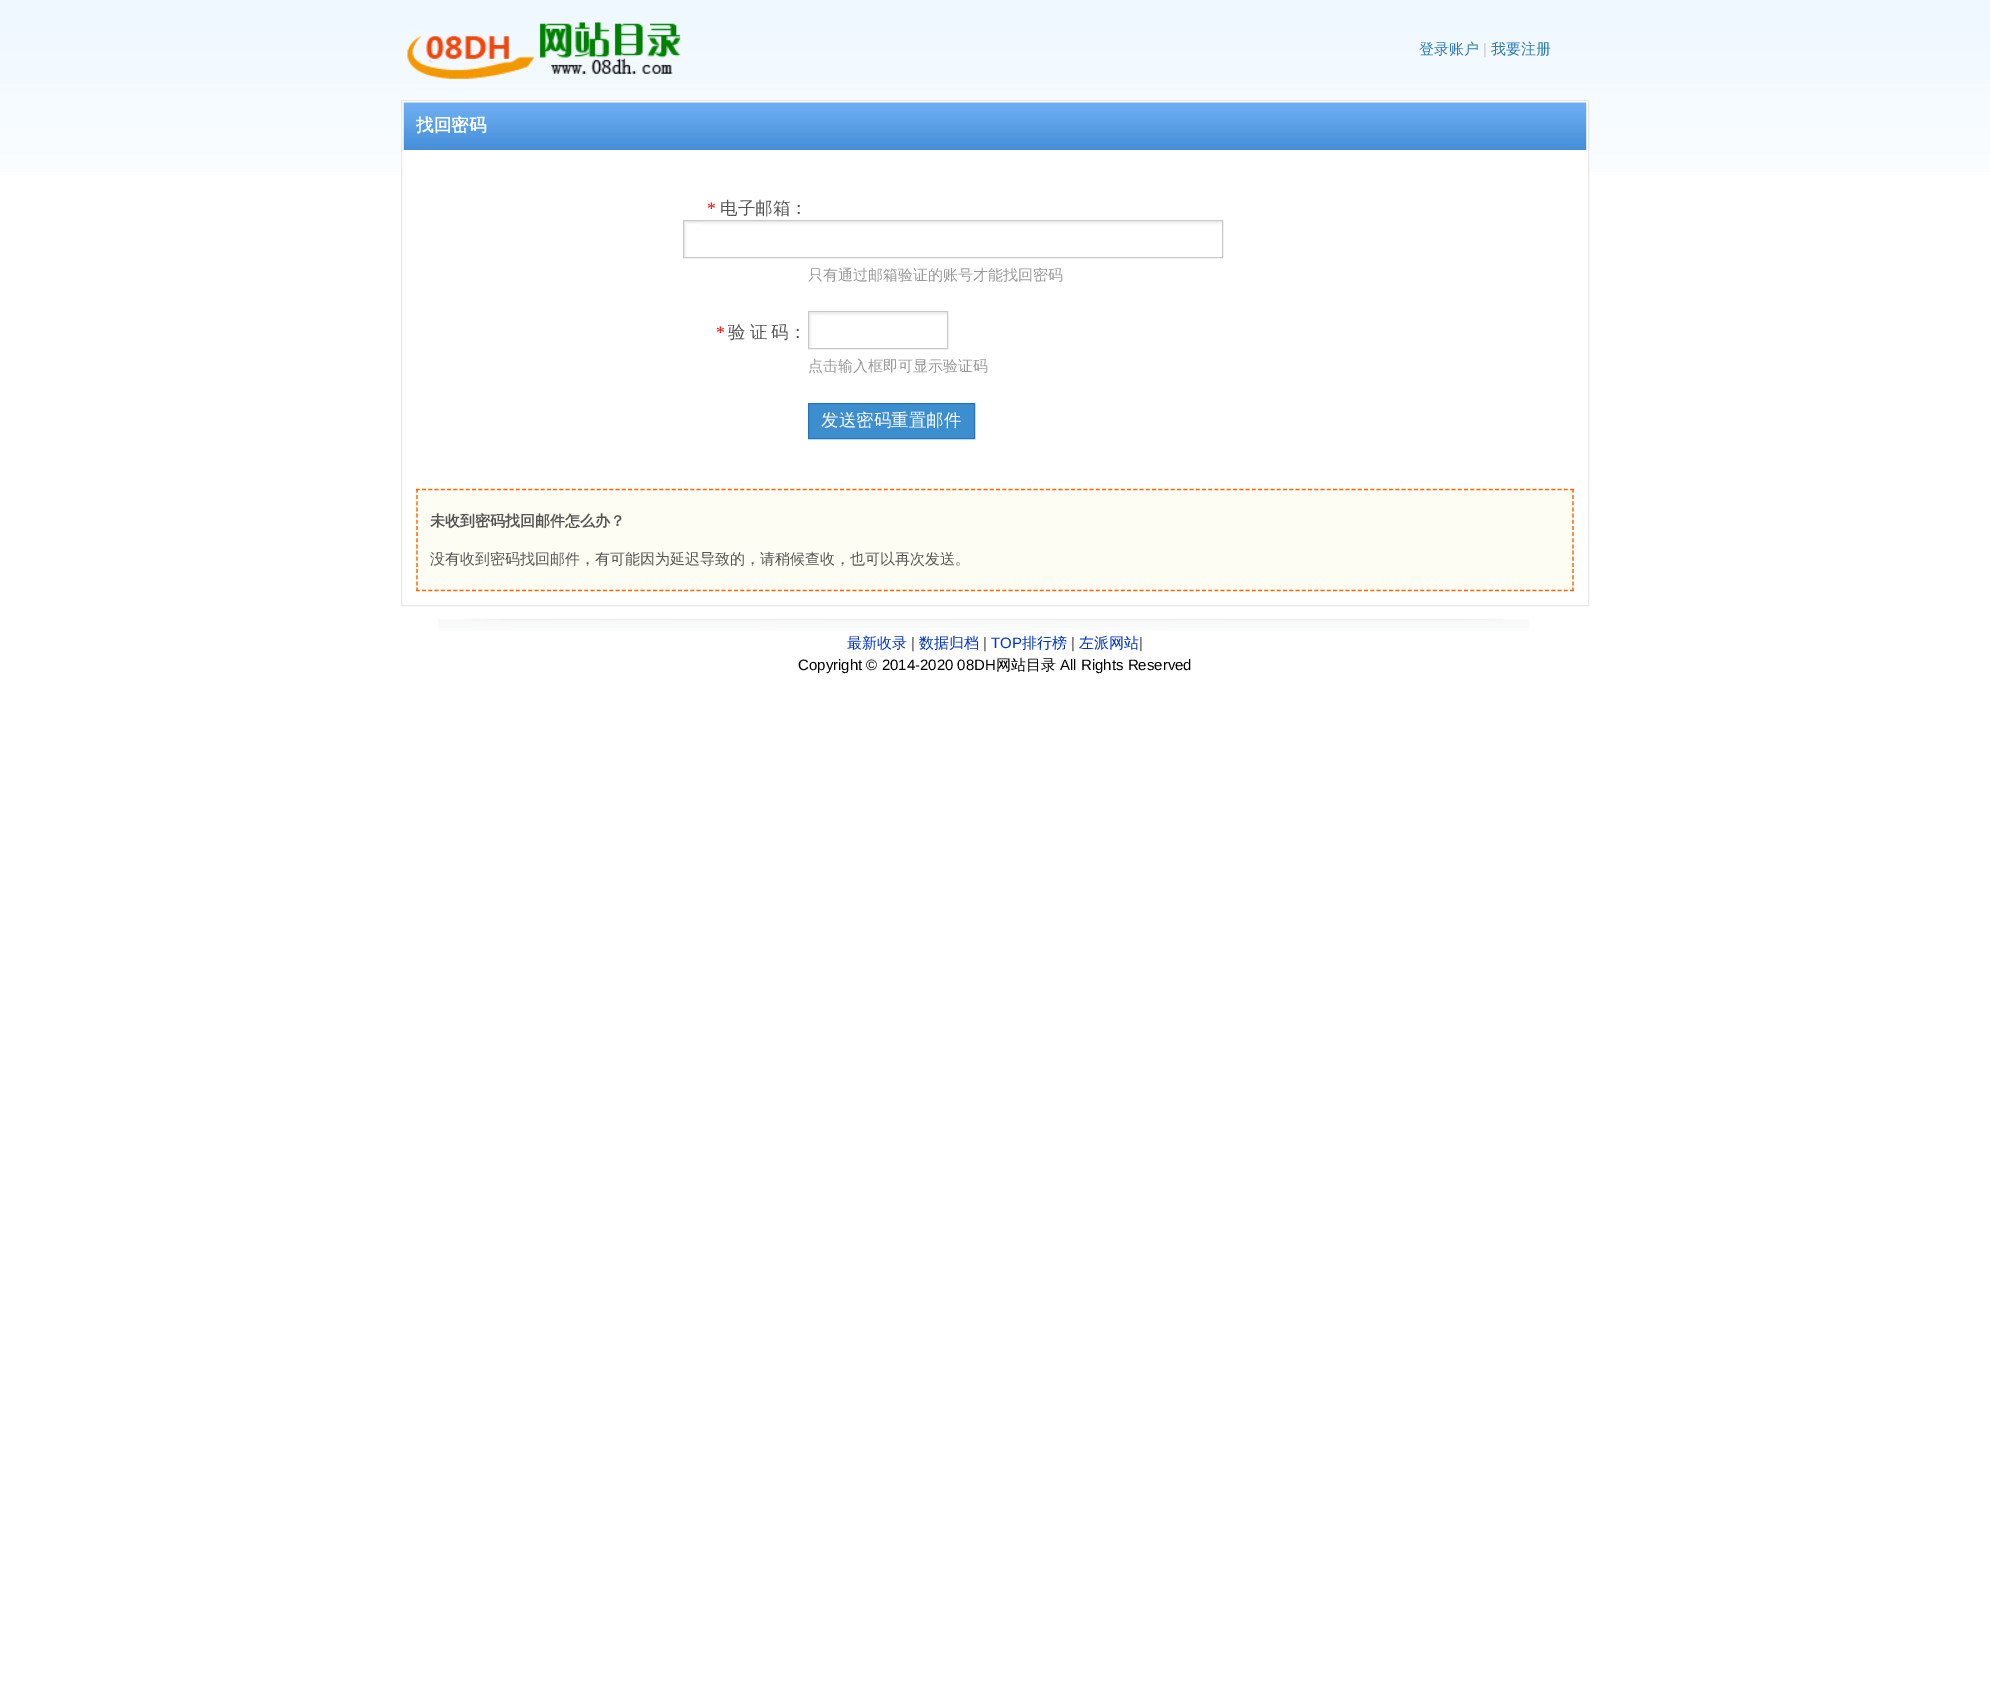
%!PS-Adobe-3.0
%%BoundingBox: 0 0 1990 1681
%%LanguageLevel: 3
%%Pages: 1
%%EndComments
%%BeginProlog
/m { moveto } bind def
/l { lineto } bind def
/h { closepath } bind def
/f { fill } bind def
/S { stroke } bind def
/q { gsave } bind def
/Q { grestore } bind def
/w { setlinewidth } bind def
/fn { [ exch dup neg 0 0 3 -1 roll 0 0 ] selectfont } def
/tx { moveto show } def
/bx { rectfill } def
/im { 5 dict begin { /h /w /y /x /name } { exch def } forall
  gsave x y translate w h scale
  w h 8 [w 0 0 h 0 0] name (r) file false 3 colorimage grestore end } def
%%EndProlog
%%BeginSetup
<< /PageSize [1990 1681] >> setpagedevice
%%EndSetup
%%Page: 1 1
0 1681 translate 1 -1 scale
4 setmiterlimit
1 setgray
0 0 1990 1681 bx
(image0.raw) 0 0 1990 172 im
(image1.raw) 407 22 274 57 im
/WenQuanYiZenHei-Medium 15 fn
0.169 0.478 0.722 setrgbcolor
(登录账户) 1419 54 tx
/LiberationSans-Regular 15 fn
0.8 setgray
(|) 1483 54 tx
/WenQuanYiZenHei-Medium 15 fn
0.169 0.478 0.722 setrgbcolor
(我要注册) 1491 54 tx
1 setgray
402 101 1186 71 bx
0.91 setgray
401.5 100.5 1187 505 rectstroke
(image2.raw) 403 102 1184 48 im
/WenQuanYiZenHei-Bold 17.5 fn
1 setgray
(找回密码) 416 131 tx
/LiberationSerif-Regular 17.5 fn
1 0 0 setrgbcolor
(*) 707 214 tx
/WenQuanYiZenHei-Medium 17.5 fn
0.333 setgray
(电子邮箱：) 720 214 tx
(image3.raw) 684 221 538 36 im
0.788 setgray
683.5 220.5 539 37 rectstroke
/WenQuanYiZenHei-Medium 15 fn
0.6 setgray
(只有通过邮箱验证的账号才能找回密码) 808 280 tx
/LiberationSerif-Regular 17.5 fn
1 0 0 setrgbcolor
(*) 716 338 tx
/WenQuanYiZenHei-Medium 17.5 fn
0.333 setgray
728 338 m -1 0 32 (验 证 码：) widthshow
(image4.raw) 809 312 138 36 im
0.788 setgray
808.5 311.5 139 37 rectstroke
/WenQuanYiZenHei-Medium 15 fn
0.6 setgray
(点击输入框即可显示验证码) 808 371 tx
0.235 0.557 0.808 setrgbcolor
808.5 403.5 m 974.5 403.5 l 974.5 438.5 l 808.5 438.5 l h q f Q
0.149 0.447 0.737 setrgbcolor
S
/WenQuanYiZenHei-Medium 17.5 fn
1 setgray
(发送密码重置邮件) 821 426 tx
0.992 0.992 0.957 setrgbcolor
416 489 1158 102 bx
1 0.4 0 setrgbcolor
1.2 w
[3.75 2.49] 0 setdash
416 489.5 m 1574 489.5 l S
[3.75 2.42] 0 setdash
1573 489 m 1573 591 l S
[3.75 2.49] 0 setdash
416 590.5 m 1574 590.5 l S
[3.75 2.42] 0 setdash
417 489 m 417 591 l S
/WenQuanYiZenHei-Bold 15 fn
0.333 setgray
(未收到密码找回邮件怎么办？) 430 526 tx
/WenQuanYiZenHei-Medium 15 fn
(没有收到密码找回邮件，有可能因为延迟导致的，请稍候查收，也可以再次发送。) 430 564 tx
(image5.raw) 438 618 1091 13 im
0 0.2 0.8 setrgbcolor
(最新收录) 847 648 tx
/LiberationSans-Regular 15 fn
0.333 setgray
(|) 911 648 tx
/WenQuanYiZenHei-Medium 15 fn
0 0.2 0.8 setrgbcolor
(数据归档) 919 648 tx
/LiberationSans-Regular 15 fn
0.333 setgray
(|) 983 648 tx
0 0.2 0.8 setrgbcolor
(TOP) 991 648 tx
/WenQuanYiZenHei-Medium 15 fn
(排行榜) 1022 648 tx
/LiberationSans-Regular 15 fn
0.333 setgray
(|) 1071 648 tx
/WenQuanYiZenHei-Medium 15 fn
0 0.2 0.8 setrgbcolor
(左派网站) 1079 648 tx
/LiberationSans-Regular 15 fn
0.333 setgray
(|) 1139 648 tx
0 setgray
(Copyright © 2014-2020 08DH) 798 670 tx
/WenQuanYiZenHei-Medium 15 fn
(网站目录) 996 670 tx
/LiberationSans-Regular 15 fn
(All Rights Reserved) 1060 670 tx
showpage
%%EOF
